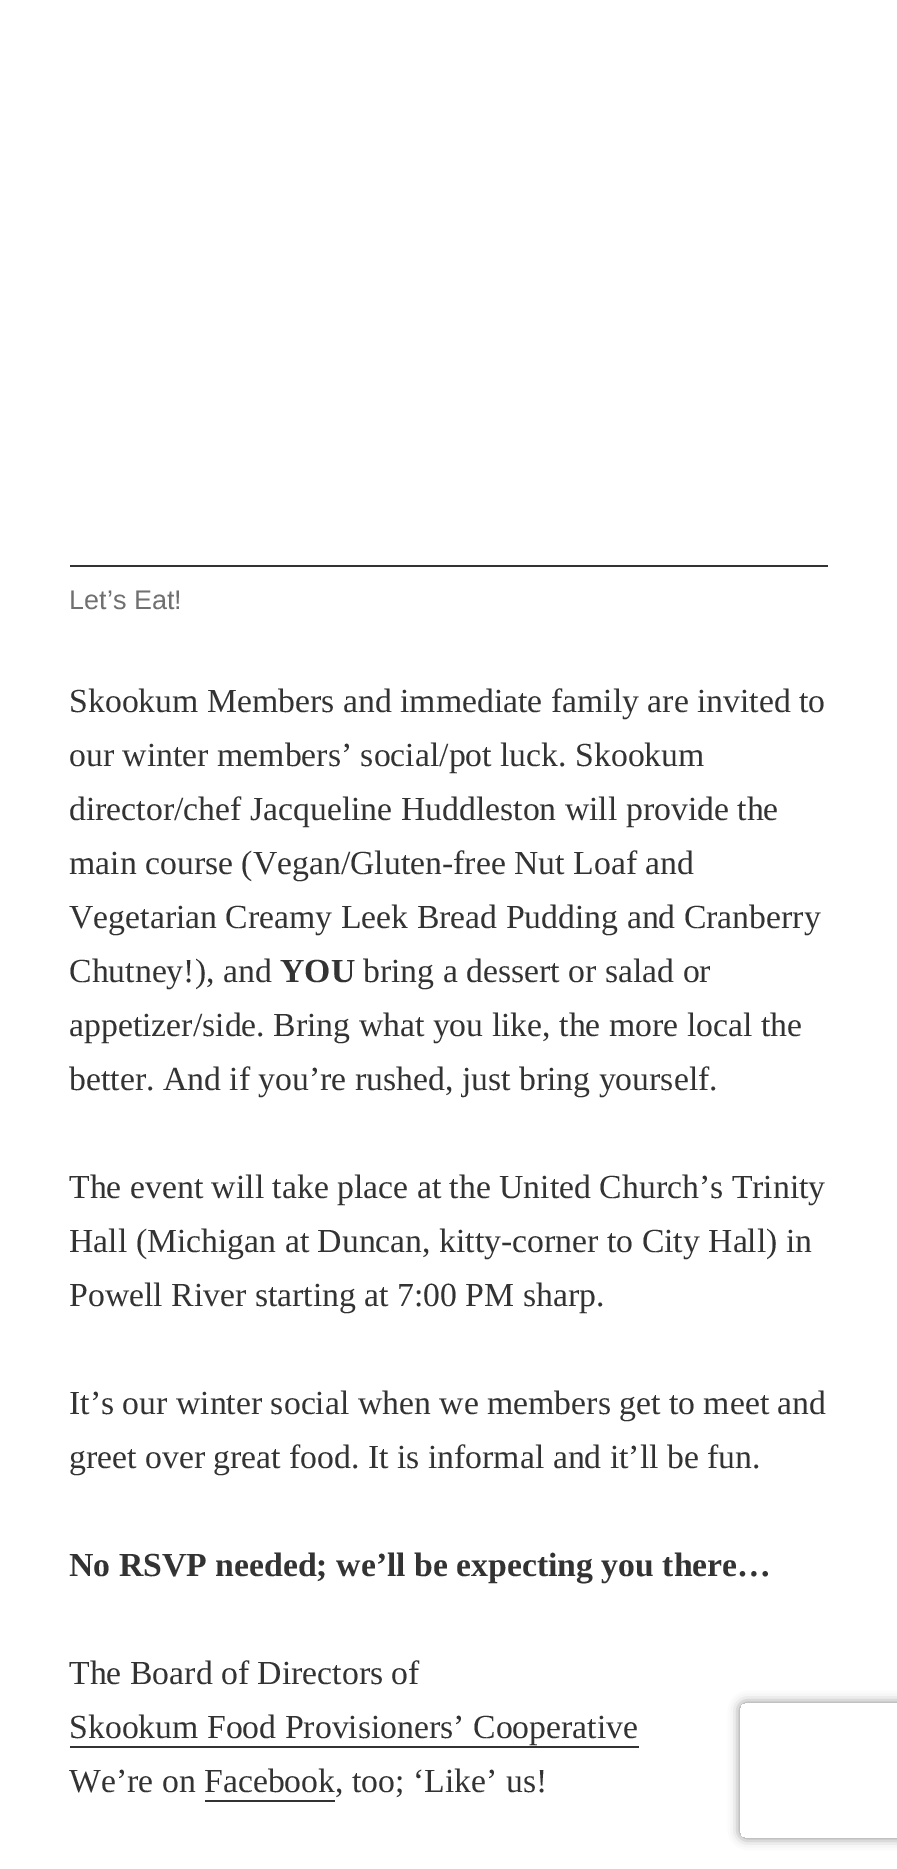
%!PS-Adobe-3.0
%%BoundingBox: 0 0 897 1869
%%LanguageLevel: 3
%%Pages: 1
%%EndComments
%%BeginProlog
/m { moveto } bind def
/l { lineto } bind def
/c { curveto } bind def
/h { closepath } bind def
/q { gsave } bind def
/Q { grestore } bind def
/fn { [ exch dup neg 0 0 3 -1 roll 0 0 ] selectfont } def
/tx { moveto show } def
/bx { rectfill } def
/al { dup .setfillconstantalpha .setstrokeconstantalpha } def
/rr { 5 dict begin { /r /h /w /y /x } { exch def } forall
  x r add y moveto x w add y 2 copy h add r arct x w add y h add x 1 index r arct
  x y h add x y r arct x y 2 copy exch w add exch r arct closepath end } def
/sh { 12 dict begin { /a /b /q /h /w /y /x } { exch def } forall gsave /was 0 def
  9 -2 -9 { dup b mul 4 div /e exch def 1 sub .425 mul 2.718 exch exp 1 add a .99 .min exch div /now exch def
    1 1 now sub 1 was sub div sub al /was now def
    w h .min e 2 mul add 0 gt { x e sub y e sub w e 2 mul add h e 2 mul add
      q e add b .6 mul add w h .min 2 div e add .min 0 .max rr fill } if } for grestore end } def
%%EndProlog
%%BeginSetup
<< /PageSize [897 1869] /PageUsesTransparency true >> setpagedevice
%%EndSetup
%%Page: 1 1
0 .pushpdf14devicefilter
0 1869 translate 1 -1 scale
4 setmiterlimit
1 setgray
0 0 897 1869 bx
0.2 setgray
70 565 758 2 bx
/LiberationSans-Regular 27 fn
0.439 setgray
(Let’s Eat!) 69 609 tx
/LiberationSerif-Regular 33.75 fn
0.2 setgray
(Skookum Members and immediate family are invited to) 69 712 tx
(our winter members’ social/pot luck. Skookum) 69 766 tx
(director/chef Jacqueline Huddleston will provide the) 69 820 tx
(main course \(Vegan/Gluten-free Nut Loaf and) 69 874 tx
(Vegetarian Creamy Leek Bread Pudding and Cranberry) 69 928 tx
(Chutney!\), and) 69 982 tx
/LiberationSerif-Bold 33.75 fn
(YOU) 280 982 tx
/LiberationSerif-Regular 33.75 fn
(bring a dessert or salad or) 363 982 tx
(appetizer/side. Bring what you like, the more local the) 69 1036 tx
(better. And if you’re rushed, just bring yourself.) 69 1090 tx
(The event will take place at the United Church’s Trinity) 69 1198 tx
(Hall \(Michigan at Duncan, kitty-corner to City Hall\) in) 69 1252 tx
(Powell River starting at 7:00 PM sharp.) 69 1306 tx
(It’s our winter social when we members get to meet and) 69 1414 tx
(greet over great food. It is informal and it’ll be fun.) 69 1468 tx
/LiberationSerif-Bold 33.75 fn
(No RSVP needed; we’ll be expecting you there…) 69 1576 tx
/LiberationSerif-Regular 33.75 fn
(The Board of Directors of) 69 1684 tx
(Skookum Food Provisioners’ Cooperative) 69 1738 tx
70 1746 569 2 bx
(We’re on Facebook, too; ‘Like’ us!) 69 1792 tx
205 1800 130 2 bx
q
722 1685 m 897 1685 l 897 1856 l 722 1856 l h 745 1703 m 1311 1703 l 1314 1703 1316 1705 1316 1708 c 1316 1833 l 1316 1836 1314 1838 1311 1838 c 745 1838 l 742 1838 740 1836 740 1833 c 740 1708 l 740 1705 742 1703 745 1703 c h eoclip newpath
0.502 setgray
740 1703 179 135 5 5.5 1 sh
Q
.poppdf14devicefilter showpage
%%EOF
